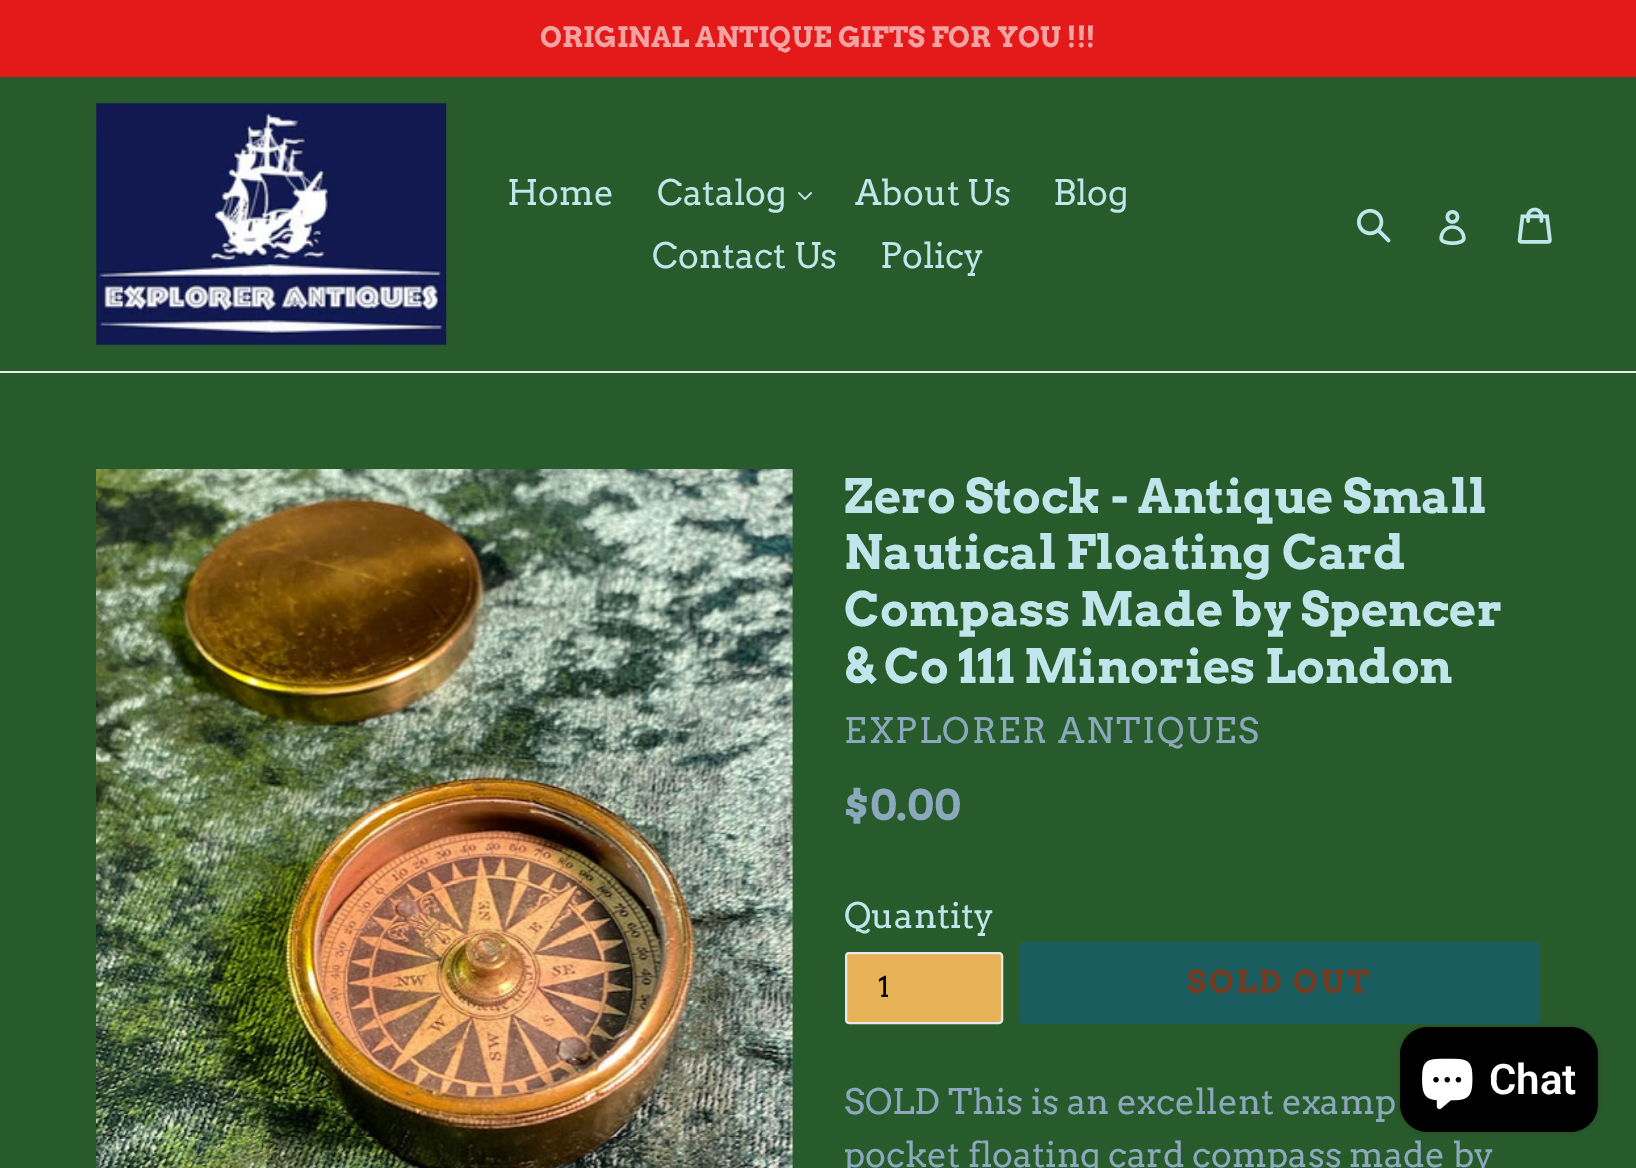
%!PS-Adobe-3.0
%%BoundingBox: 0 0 1636 1168
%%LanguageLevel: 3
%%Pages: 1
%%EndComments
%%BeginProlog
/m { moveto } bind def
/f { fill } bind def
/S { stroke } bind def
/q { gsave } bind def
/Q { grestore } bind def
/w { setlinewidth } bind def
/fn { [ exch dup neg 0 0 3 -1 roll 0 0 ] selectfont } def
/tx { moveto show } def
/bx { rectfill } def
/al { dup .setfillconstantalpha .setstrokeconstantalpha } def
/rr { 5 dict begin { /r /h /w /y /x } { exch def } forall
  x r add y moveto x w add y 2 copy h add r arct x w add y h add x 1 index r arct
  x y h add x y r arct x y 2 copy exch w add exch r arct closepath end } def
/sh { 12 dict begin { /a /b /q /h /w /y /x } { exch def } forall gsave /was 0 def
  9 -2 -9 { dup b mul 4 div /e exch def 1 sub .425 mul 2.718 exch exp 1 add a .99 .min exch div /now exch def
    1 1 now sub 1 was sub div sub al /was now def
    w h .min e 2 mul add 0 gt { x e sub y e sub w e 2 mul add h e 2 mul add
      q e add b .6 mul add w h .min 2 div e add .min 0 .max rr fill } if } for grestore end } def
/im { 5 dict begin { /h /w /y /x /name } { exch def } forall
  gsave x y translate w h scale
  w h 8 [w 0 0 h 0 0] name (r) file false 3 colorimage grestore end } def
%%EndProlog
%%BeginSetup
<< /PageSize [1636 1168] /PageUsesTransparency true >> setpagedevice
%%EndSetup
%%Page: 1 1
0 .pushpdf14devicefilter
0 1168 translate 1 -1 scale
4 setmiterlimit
0.157 0.357 0.169 setrgbcolor
0 0 1636 1168 bx
0.894 0.102 0.102 setrgbcolor
0 0 1636 77 bx
/Arvo-Bold 28 fn
0.957 0.639 0.639 setrgbcolor
(ORIGINAL ANTIQUE GIFTS FOR YOU !!!) 540 47 tx
0.91 0.914 0.922 setrgbcolor
0 371 1636 2 bx
(image0.raw) 96 103 351 242 im
/Arvo-Regular 35 fn
0.753 0.902 0.925 setrgbcolor
(Home) 507 205 tx
(Catalog) 657 205 tx
(image1.raw) 798 192 14 8 im
(About Us) 855 205 tx
(Blog) 1053 205 tx
(Contact Us) 652 268 tx
(Policy) 880 268 tx
(image2.raw) 1357 208 34 35 im
(image3.raw) 1439 210 27 35 im
(image4.raw) 1517 207 35 37 im
(image5.raw) 96 469 697 699 im
/Arvo-Bold 47.25 fn
(Zero Stock - Antique Small) 844 513 tx
(Nautical Floating Card) 844 569 tx
(Compass Made by Spencer) 844 626 tx
(& Co 111 Minories London) 844 683 tx
/Arvo-Regular 35 fn
0.549 0.659 0.741 setrgbcolor
844 743 m 1.75 0 (EXPLORER ANTIQUES) ashow
/Arvo-Bold 42 fn
($0.00) 844 820 tx
/Arvo-Regular 35 fn
0.753 0.902 0.925 setrgbcolor
(Quantity) 844 928 tx
0.902 0.694 0.341 setrgbcolor
846 953 156 70 3 rr q f Q
0.91 0.914 0.922 setrgbcolor
2 w
S
q
879 971 64 34 rectclip
/Arvo-Regular 28 fn
0 setgray
(1) 878 997 tx
Q
0.102 0.365 0.373 setrgbcolor
1020 942 520 82 4 rr f
/Arvo-Bold 31.5 fn
0.451 0.227 0.133 setrgbcolor
1187 993 m 2.5 0 (SOLD OUT) ashow
/Arvo-Regular 35 fn
0.549 0.659 0.741 setrgbcolor
(SOLD This is an excellent examp) 844 1114 tx
(pocket floating card compass made by) 844 1167 tx
0 setgray
1400 1027 198 105 28 4.5 0.15 sh
1400 1027 198 105 28 rr f
(image6.raw) 1422 1058 51 52 im
/Roboto-SemiBold 42 fn
1 setgray
(Chat) 1489 1094 tx
.poppdf14devicefilter showpage
%%EOF
